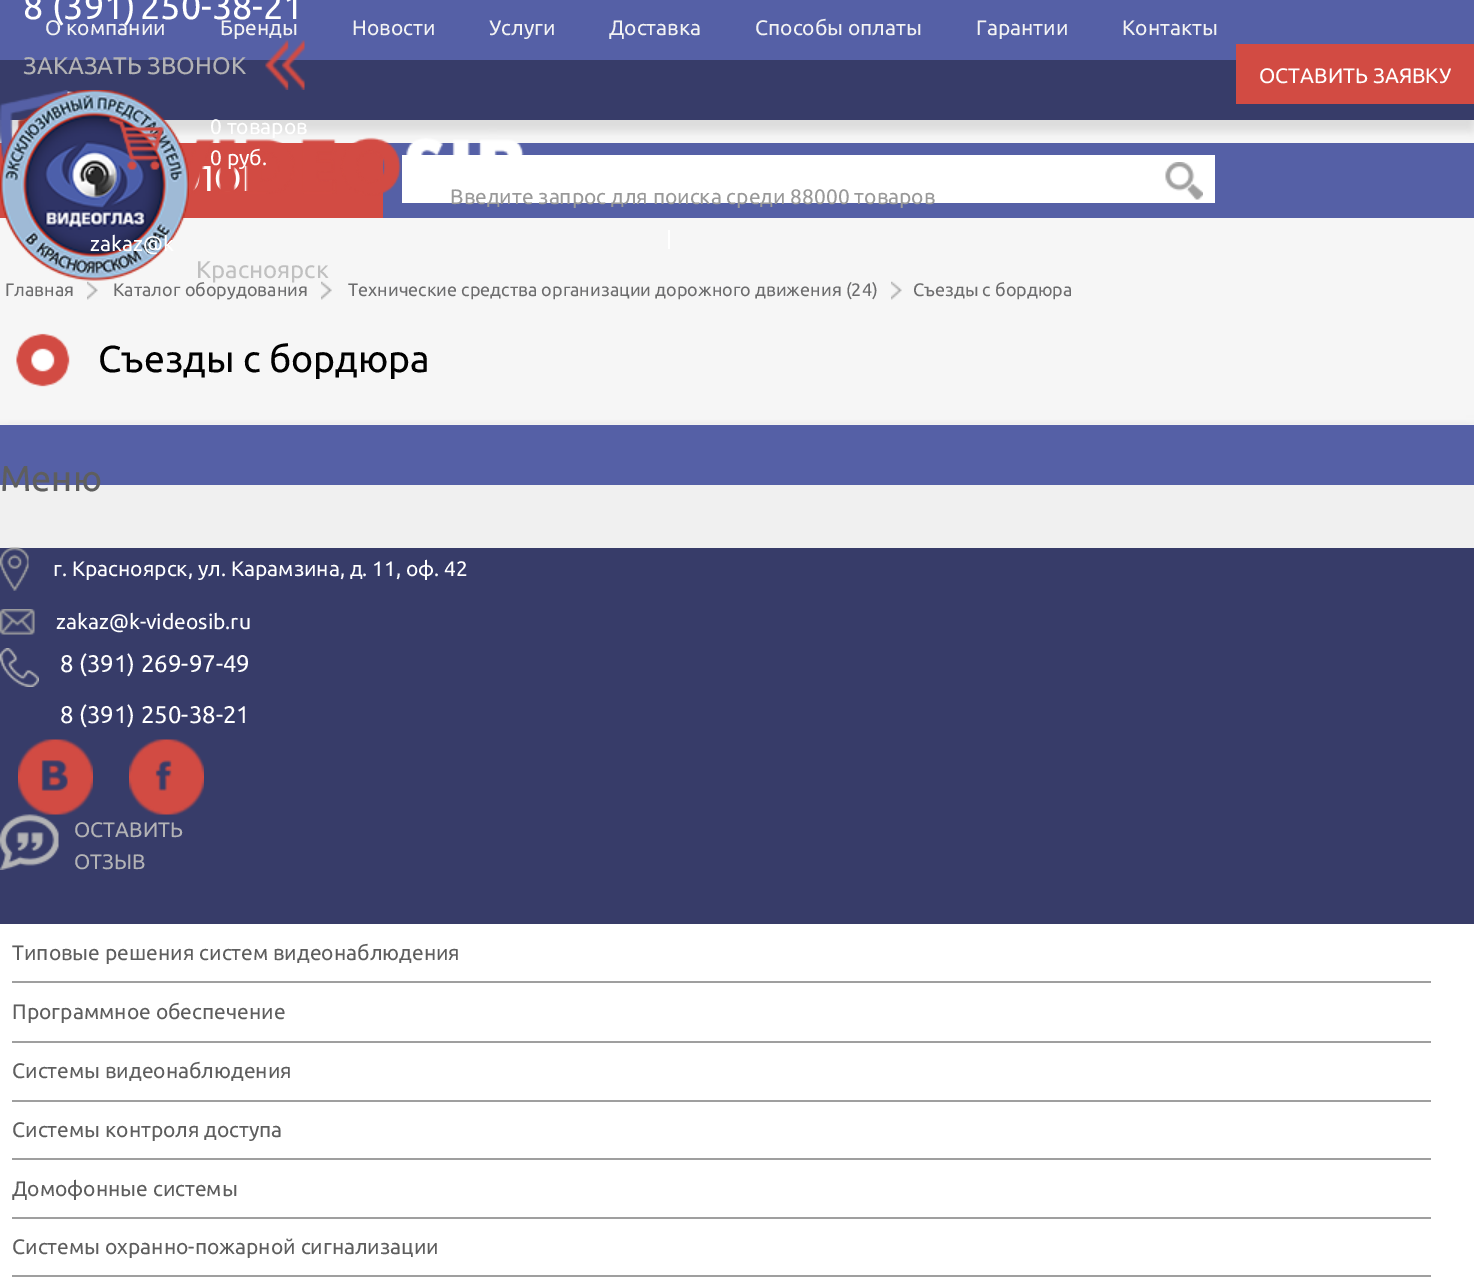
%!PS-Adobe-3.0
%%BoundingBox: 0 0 1474 1277
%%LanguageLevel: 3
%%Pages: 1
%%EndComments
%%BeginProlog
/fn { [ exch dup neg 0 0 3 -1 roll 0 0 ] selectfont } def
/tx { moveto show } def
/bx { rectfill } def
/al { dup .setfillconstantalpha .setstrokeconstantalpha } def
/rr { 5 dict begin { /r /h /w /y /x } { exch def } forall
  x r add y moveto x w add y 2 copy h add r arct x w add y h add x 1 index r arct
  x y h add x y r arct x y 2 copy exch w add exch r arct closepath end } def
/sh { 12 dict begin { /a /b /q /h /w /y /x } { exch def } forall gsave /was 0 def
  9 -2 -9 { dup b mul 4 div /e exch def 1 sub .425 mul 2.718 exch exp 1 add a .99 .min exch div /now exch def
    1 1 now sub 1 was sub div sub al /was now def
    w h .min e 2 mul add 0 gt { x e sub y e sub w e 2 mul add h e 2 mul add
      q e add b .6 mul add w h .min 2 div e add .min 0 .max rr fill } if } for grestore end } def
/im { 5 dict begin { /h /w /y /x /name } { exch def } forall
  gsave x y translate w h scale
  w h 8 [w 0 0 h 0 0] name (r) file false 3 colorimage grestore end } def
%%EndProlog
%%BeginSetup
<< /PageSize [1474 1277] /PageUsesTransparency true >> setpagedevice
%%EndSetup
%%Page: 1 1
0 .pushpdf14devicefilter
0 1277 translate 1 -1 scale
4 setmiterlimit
0.941 setgray
0 0 1474 1277 bx
0.216 0.235 0.412 setrgbcolor
0 60 1474 60 bx
0.333 0.376 0.651 setrgbcolor
0 0 1474 60 bx
/Ubuntu-Regular 36 fn
1 setgray
(8 \(391\)) 23 19 tx
(250-38-21) 140 19 tx
(image0.raw) 265 40 40 50 im
/Ubuntu-Regular 24 fn
0.702 0.702 0.71 setrgbcolor
(ЗАКАЗАТЬ ЗВОНОК) 23 74 tx
0.965 setgray
0 218 1474 207 bx
(image4.raw) 0 120 1474 305 im
0.333 0.376 0.651 setrgbcolor
383 143 1091 75 bx
0.824 0.294 0.263 setrgbcolor
0 143 383 75 bx
(image3.raw) 0 90 524 106 im
(image1.raw) 0 90 189 191 im
(image2.raw) 109 117 55 53 im
/Ubuntu-Regular 21 fn
1 setgray
(0 товаров) 210 134 tx
(0 руб.) 210 165 tx
(zakaz@k) 90 251 tx
/Ubuntu-Regular 24 fn
0.753 setgray
(Красноярск) 196 278 tx
/Ubuntu-Regular 21 fn
0.953 setgray
(О компании) 45 35 tx
(Бренды) 220 35 tx
(Новости) 352 35 tx
(Услуги) 489 35 tx
(Доставка) 609 35 tx
(Способы оплаты) 755 35 tx
(Гарантии) 976 35 tx
(Контакты) 1122 35 tx
0.824 0.294 0.263 setrgbcolor
1236 44 238 60 bx
1 setgray
(ОСТАВИТЬ ЗАЯВКУ) 1259 83 tx
402 155 813 48 bx
0.6 setgray
(Введите запрос для поиска среди 88000 товаров) 450 204 tx
(image5.raw) 1165 162 38 38 im
1 setgray
668 230 2 19 bx
/Ubuntu-Regular 18 fn
0.424 0.424 0.427 setrgbcolor
(Главная) 5 296 tx
(image6.raw) 87 281 11 19 im
(Каталог оборудования) 113 296 tx
(image7.raw) 321 281 11 19 im
(Технические средства организации дорожного движения \(24\)) 348 296 tx
(image6.raw) 891 281 11 19 im
(Съезды с бордюра) 913 296 tx
(image8.raw) 16 333 54 54 im
/Ubuntu-Regular 37.5 fn
0 setgray
(Съезды с бордюра) 98 372 tx
0.333 0.376 0.651 setrgbcolor
0 425 1474 60 bx
/Ubuntu-Regular 36 fn
0.369 setgray
(Меню) 0 491 tx
0.216 0.235 0.412 setrgbcolor
0 548 1474 376 bx
(image9.raw) 0 547 29 44 im
/Ubuntu-Regular 21 fn
1 setgray
(г. Красноярск, ул. Карамзина, д. 11, оф. 42) 53 576 tx
(image10.raw) 0 609 35 26 im
(zakaz@k-videosib.ru) 56 629 tx
(image11.raw) 0 648 39 39 im
/Ubuntu-Regular 24 fn
(8 \(391\) 269-97-49) 60 672 tx
(8 \(391\) 250-38-21) 60 723 tx
(image12.raw) 18 739 75 76 im
(image13.raw) 129 739 75 76 im
(image14.raw) 0 814 59 56 im
/Ubuntu-Regular 21 fn
0.702 0.702 0.71 setrgbcolor
(ОСТАВИТЬ) 74 837 tx
(ОТЗЫВ) 74 869 tx
0.196 setgray
3 927 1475 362 0 4 0.25 sh
1 setgray
0 924 1474 353 bx
0.624 setgray
12 981 1419 2 bx
0.369 setgray
(Типовые решения систем видеонаблюдения) 12 960 tx
0.624 setgray
12 1041 1419 2 bx
0.369 setgray
(Программное обеспечение) 12 1019 tx
0.624 setgray
12 1100 1419 2 bx
0.369 setgray
(Системы видеонаблюдения) 12 1078 tx
0.624 setgray
12 1158 1419 2 bx
0.369 setgray
(Системы контроля доступа) 12 1137 tx
0.624 setgray
12 1217 1419 2 bx
0.369 setgray
(Домофонные системы) 12 1196 tx
0.624 setgray
12 1275 1419 2 bx
0.369 setgray
(Системы охранно-пожарной сигнализации) 12 1254 tx
.poppdf14devicefilter showpage
%%EOF
